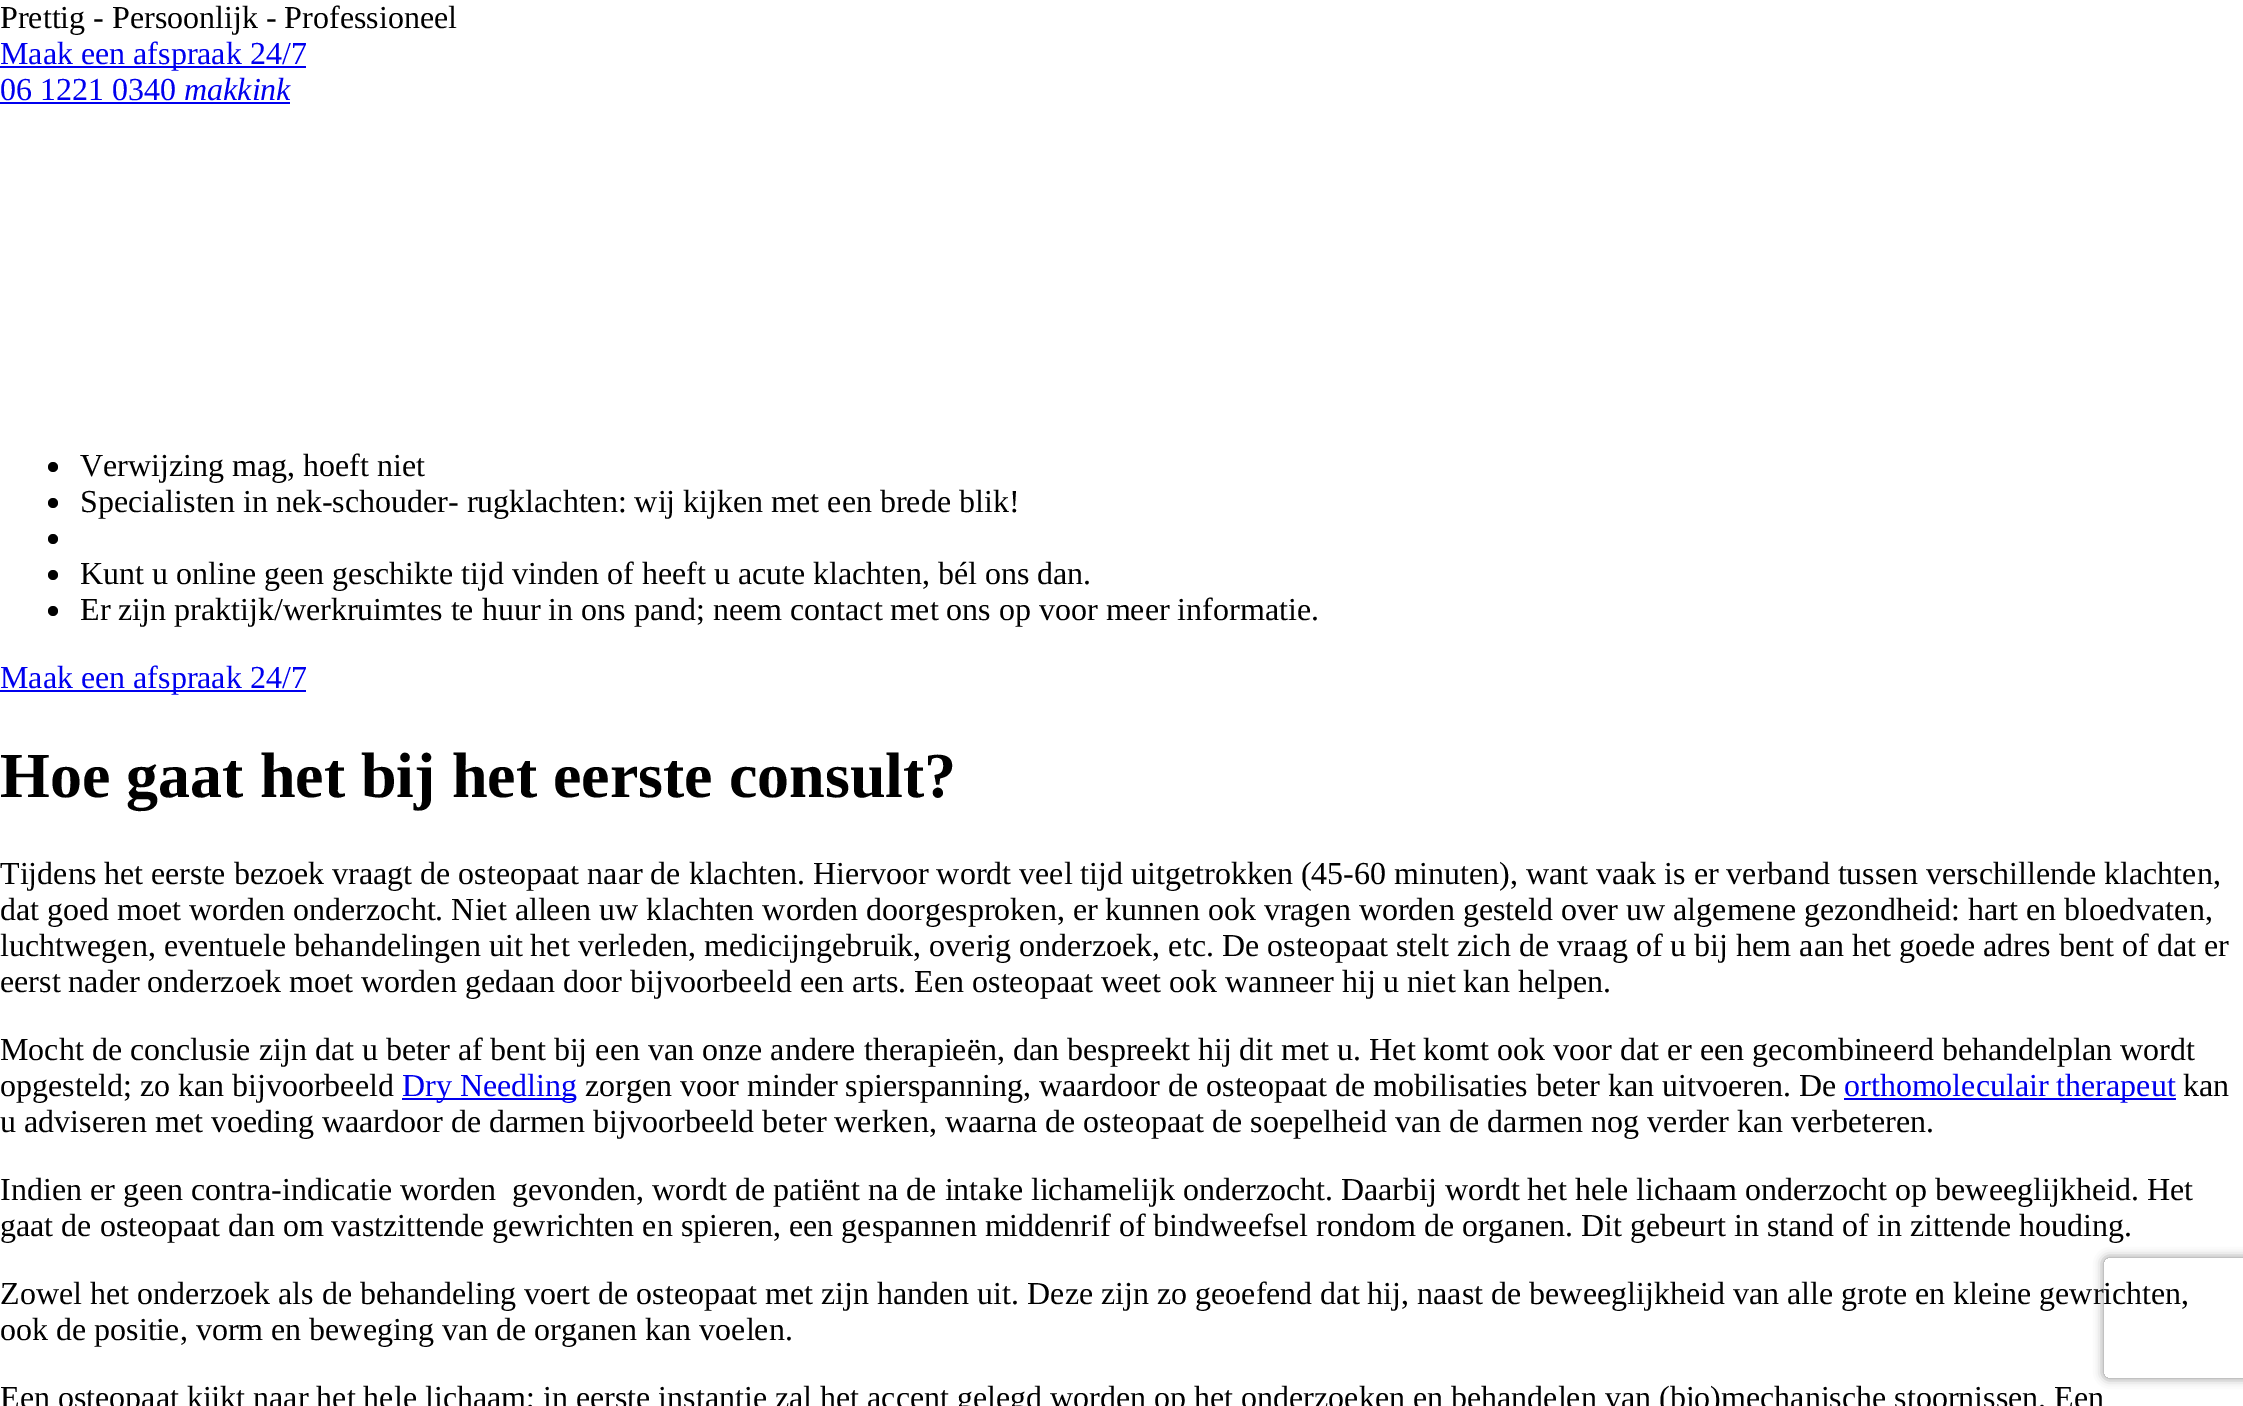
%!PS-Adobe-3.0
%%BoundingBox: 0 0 2243 1406
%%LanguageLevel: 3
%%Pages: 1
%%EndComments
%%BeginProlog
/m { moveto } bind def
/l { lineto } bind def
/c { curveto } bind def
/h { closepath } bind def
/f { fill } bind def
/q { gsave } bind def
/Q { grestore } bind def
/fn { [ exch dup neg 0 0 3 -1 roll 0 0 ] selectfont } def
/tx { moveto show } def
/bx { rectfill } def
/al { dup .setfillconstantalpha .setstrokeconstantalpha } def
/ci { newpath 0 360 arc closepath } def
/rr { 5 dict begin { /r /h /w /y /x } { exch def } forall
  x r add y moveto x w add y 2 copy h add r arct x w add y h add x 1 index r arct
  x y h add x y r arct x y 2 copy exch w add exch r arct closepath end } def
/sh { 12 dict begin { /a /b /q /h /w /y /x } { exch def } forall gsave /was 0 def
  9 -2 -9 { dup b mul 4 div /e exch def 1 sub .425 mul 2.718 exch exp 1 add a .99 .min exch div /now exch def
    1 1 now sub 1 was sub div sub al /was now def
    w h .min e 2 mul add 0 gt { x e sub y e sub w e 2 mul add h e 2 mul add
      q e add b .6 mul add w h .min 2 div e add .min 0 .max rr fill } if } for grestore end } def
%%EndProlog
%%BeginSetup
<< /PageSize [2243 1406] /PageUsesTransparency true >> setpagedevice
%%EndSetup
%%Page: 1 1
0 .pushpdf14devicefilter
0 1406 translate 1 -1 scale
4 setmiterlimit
1 setgray
0 0 2243 1406 bx
/LiberationSerif-Regular 32 fn
0 setgray
(Prettig - Persoonlijk - Professioneel) 0 28 tx
0 0 0.933 setrgbcolor
0 66 306 2 bx
(Maak een afspraak 24/7) 0 64 tx
(06 1221 0340) 0 100 tx
0 102 290 2 bx
/LiberationSerif-Italic 32 fn
(makkink) 184 100 tx
0 setgray
53 467 5 ci f
/LiberationSerif-Regular 32 fn
(Verwijzing mag, hoeft niet) 80 476 tx
53 503 5 ci f
(Specialisten in nek-schouder- rugklachten: wij kijken met een brede blik!) 80 512 tx
53 539 5 ci f
53 575 5 ci f
(Kunt u online geen geschikte tijd vinden of heeft u acute klachten, bél ons dan.) 80 584 tx
53 611 5 ci f
(Er zijn praktijk/werkruimtes te huur in ons pand; neem contact met ons op voor meer informatie.) 80 620 tx
0 0 0.933 setrgbcolor
0 690 306 2 bx
(Maak een afspraak 24/7) 0 688 tx
/LiberationSerif-Bold 64 fn
0 setgray
(Hoe gaat het bij het eerste consult?) 0 797 tx
/LiberationSerif-Regular 32 fn
(Tijdens het eerste bezoek vraagt de osteopaat naar de klachten. Hiervoor wordt veel tijd uitgetrokken \(45-60 minuten\), want vaak is er verband tussen verschillende klachten,) 0 884 tx
(dat goed moet worden onderzocht. Niet alleen uw klachten worden doorgesproken, er kunnen ook vragen worden gesteld over uw algemene gezondheid: hart en bloedvaten,) 0 920 tx
(luchtwegen, eventuele behandelingen uit het verleden, medicijngebruik, overig onderzoek, etc. De osteopaat stelt zich de vraag of u bij hem aan het goede adres bent of dat er) 0 956 tx
(eerst nader onderzoek moet worden gedaan door bijvoorbeeld een arts. Een osteopaat weet ook wanneer hij u niet kan helpen.) 0 992 tx
(Mocht de conclusie zijn dat u beter af bent bij een van onze andere therapieën, dan bespreekt hij dit met u. Het komt ook voor dat er een gecombineerd behandelplan wordt) 0 1060 tx
(opgesteld; zo kan bijvoorbeeld) 0 1096 tx
0 0 0.933 setrgbcolor
402 1098 174 2 bx
(Dry Needling) 402 1096 tx
0 setgray
(zorgen voor minder spierspanning, waardoor de osteopaat de mobilisaties beter kan uitvoeren. De) 585 1096 tx
0 0 0.933 setrgbcolor
1844 1098 332 2 bx
(orthomoleculair therapeut) 1844 1096 tx
0 setgray
(kan) 2183 1096 tx
(u adviseren met voeding waardoor de darmen bijvoorbeeld beter werken, waarna de osteopaat de soepelheid van de darmen nog verder kan verbeteren.) 0 1132 tx
(Indien er geen contra-indicatie worden  gevonden, wordt de patiënt na de intake lichamelijk onderzocht. Daarbij wordt het hele lichaam onderzocht op beweeglijkheid. Het) 0 1200 tx
(gaat de osteopaat dan om vastzittende gewrichten en spieren, een gespannen middenrif of bindweefsel rondom de organen. Dit gebeurt in stand of in zittende houding.) 0 1236 tx
(Zowel het onderzoek als de behandeling voert de osteopaat met zijn handen uit. Deze zijn zo geoefend dat hij, naast de beweeglijkheid van alle grote en kleine gewrichten,) 0 1304 tx
(ook de positie, vorm en beweging van de organen kan voelen.) 0 1340 tx
(Een osteopaat kijkt naar het hele lichaam; in eerste instantie zal het accent gelegd worden op het onderzoeken en behandelen van \(bio\)mechanische stoornissen. Een) 0 1408 tx
q
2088 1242 m 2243 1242 l 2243 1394 l 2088 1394 l h 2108 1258 m 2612 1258 l 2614 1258 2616 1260 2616 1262 c 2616 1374 l 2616 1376 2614 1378 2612 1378 c 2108 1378 l 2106 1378 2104 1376 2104 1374 c 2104 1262 l 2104 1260 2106 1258 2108 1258 c h eoclip newpath
0.502 setgray
2104 1258 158 120 4 5 1 sh
Q
.poppdf14devicefilter showpage
%%EOF
